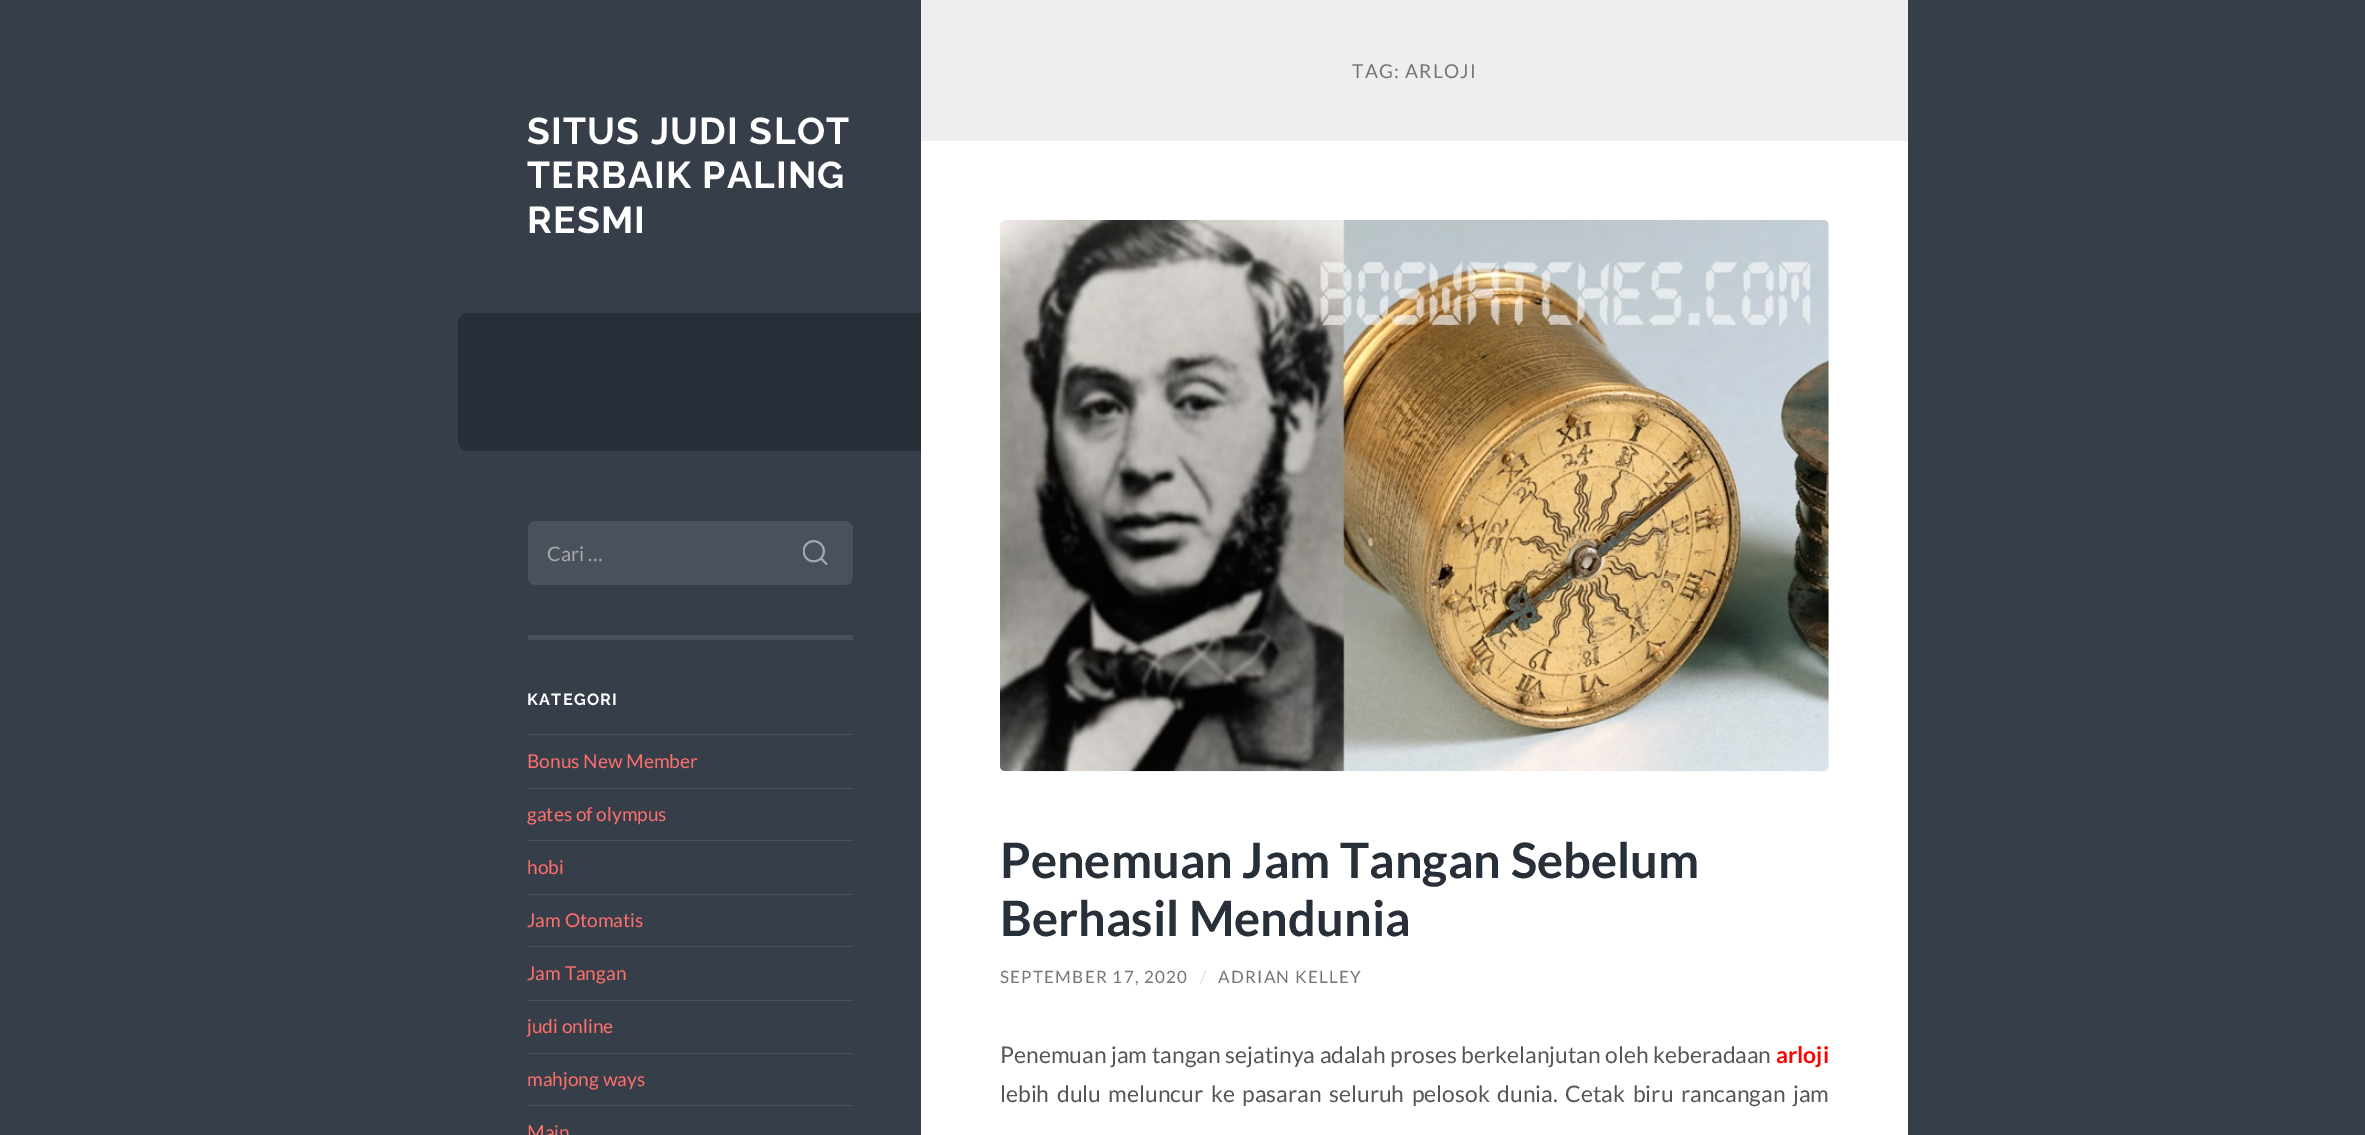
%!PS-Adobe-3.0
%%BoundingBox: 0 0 2365 1135
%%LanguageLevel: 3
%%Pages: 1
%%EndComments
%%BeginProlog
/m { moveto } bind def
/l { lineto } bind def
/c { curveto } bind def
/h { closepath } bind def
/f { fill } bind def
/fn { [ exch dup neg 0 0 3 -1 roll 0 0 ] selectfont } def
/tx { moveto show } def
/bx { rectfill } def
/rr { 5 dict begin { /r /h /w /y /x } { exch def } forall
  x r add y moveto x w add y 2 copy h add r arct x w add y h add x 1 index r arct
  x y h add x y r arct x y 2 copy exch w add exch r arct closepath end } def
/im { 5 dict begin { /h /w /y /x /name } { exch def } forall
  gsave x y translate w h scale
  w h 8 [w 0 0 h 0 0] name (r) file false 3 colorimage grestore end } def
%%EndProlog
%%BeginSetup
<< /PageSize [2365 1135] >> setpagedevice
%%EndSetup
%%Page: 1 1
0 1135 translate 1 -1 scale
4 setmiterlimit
0.208 0.243 0.286 setrgbcolor
0 0 2365 1135 bx
/Raleway-Thin 37.25 fn
1 setgray
527 144 m 1.25 0 (SITUS JUDI SLOT) ashow
527 188 m 1.25 0 (TERBAIK PALING) ashow
527 233 m 1.25 0 (RESMI) ashow
0.153 0.184 0.22 setrgbcolor
468 313 m 921 313 l 921 451 l 468 451 l 462.5 451 458 446.5 458 441 c 458 323 l 458 317.5 462.5 313 468 313 c h f
0.286 0.318 0.357 setrgbcolor
528 635 325 5 bx
0.282 0.318 0.361 setrgbcolor
528 521 325 64 8 rr f
/Lato-Regular 20 fn
0.663 setgray
(Cari …) 547 561 tx
(image0.raw) 803 540 25 25 im
/Raleway-Thin 16.25 fn
1 setgray
527 705 m 1.25 0 (KATEGORI) ashow
0.286 0.318 0.357 setrgbcolor
528 734 325 1 bx
/Lato-Regular 19.1 fn
1 0.439 0.424 setrgbcolor
(Bonus New Member) 527 768 tx
0.286 0.318 0.357 setrgbcolor
528 788 325 1 bx
1 0.439 0.424 setrgbcolor
(gates of olympus) 527 821 tx
0.286 0.318 0.357 setrgbcolor
528 840 325 1 bx
1 0.439 0.424 setrgbcolor
(hobi) 527 874 tx
0.286 0.318 0.357 setrgbcolor
528 894 325 1 bx
1 0.439 0.424 setrgbcolor
(Jam Otomatis) 527 927 tx
0.286 0.318 0.357 setrgbcolor
528 946 325 1 bx
1 0.439 0.424 setrgbcolor
(Jam Tangan) 527 980 tx
0.286 0.318 0.357 setrgbcolor
528 1000 325 1 bx
1 0.439 0.424 setrgbcolor
(judi online) 527 1033 tx
0.286 0.318 0.357 setrgbcolor
528 1053 325 1 bx
1 0.439 0.424 setrgbcolor
(mahjong ways) 527 1086 tx
0.286 0.318 0.357 setrgbcolor
528 1105 325 1 bx
1 0.439 0.424 setrgbcolor
(Main) 527 1139 tx
1 setgray
921 141 987 994 bx
0.933 setgray
921 0 987 141 bx
0.463 setgray
1352 78 m 1.25 0 (TAG: ARLOJI) ashow
(image1.raw) 1000 220 829 552 im
/Lato-Bold 48.9 fn
0.153 0.184 0.22 setrgbcolor
(Penemuan Jam Tangan Sebelum) 1000 878 tx
(Berhasil Mendunia) 1000 936 tx
/Lato-Regular 17 fn
0.463 setgray
1000 983 m 1.25 0 (SEPTEMBER 17, 2020) ashow
0.867 setgray
1200 983 m 1.25 0 (/) ashow
0.463 setgray
1218 983 m 1.25 0 (ADRIAN KELLEY) ashow
/Lato-Regular 22.85 fn
0.333 setgray
1000 1063 m 0.25 0 32 (Penemuan jam tangan sejatinya adalah proses berkelanjutan oleh keberadaan) widthshow
/Lato-Bold 22.85 fn
1 0 0 setrgbcolor
(arloji) 1776 1063 tx
/Lato-Regular 22.85 fn
0.333 setgray
1000 1102 m 3.25 0 32 (lebih dulu meluncur ke pasaran seluruh pelosok dunia. Cetak biru rancangan jam) widthshow
showpage
%%EOF
